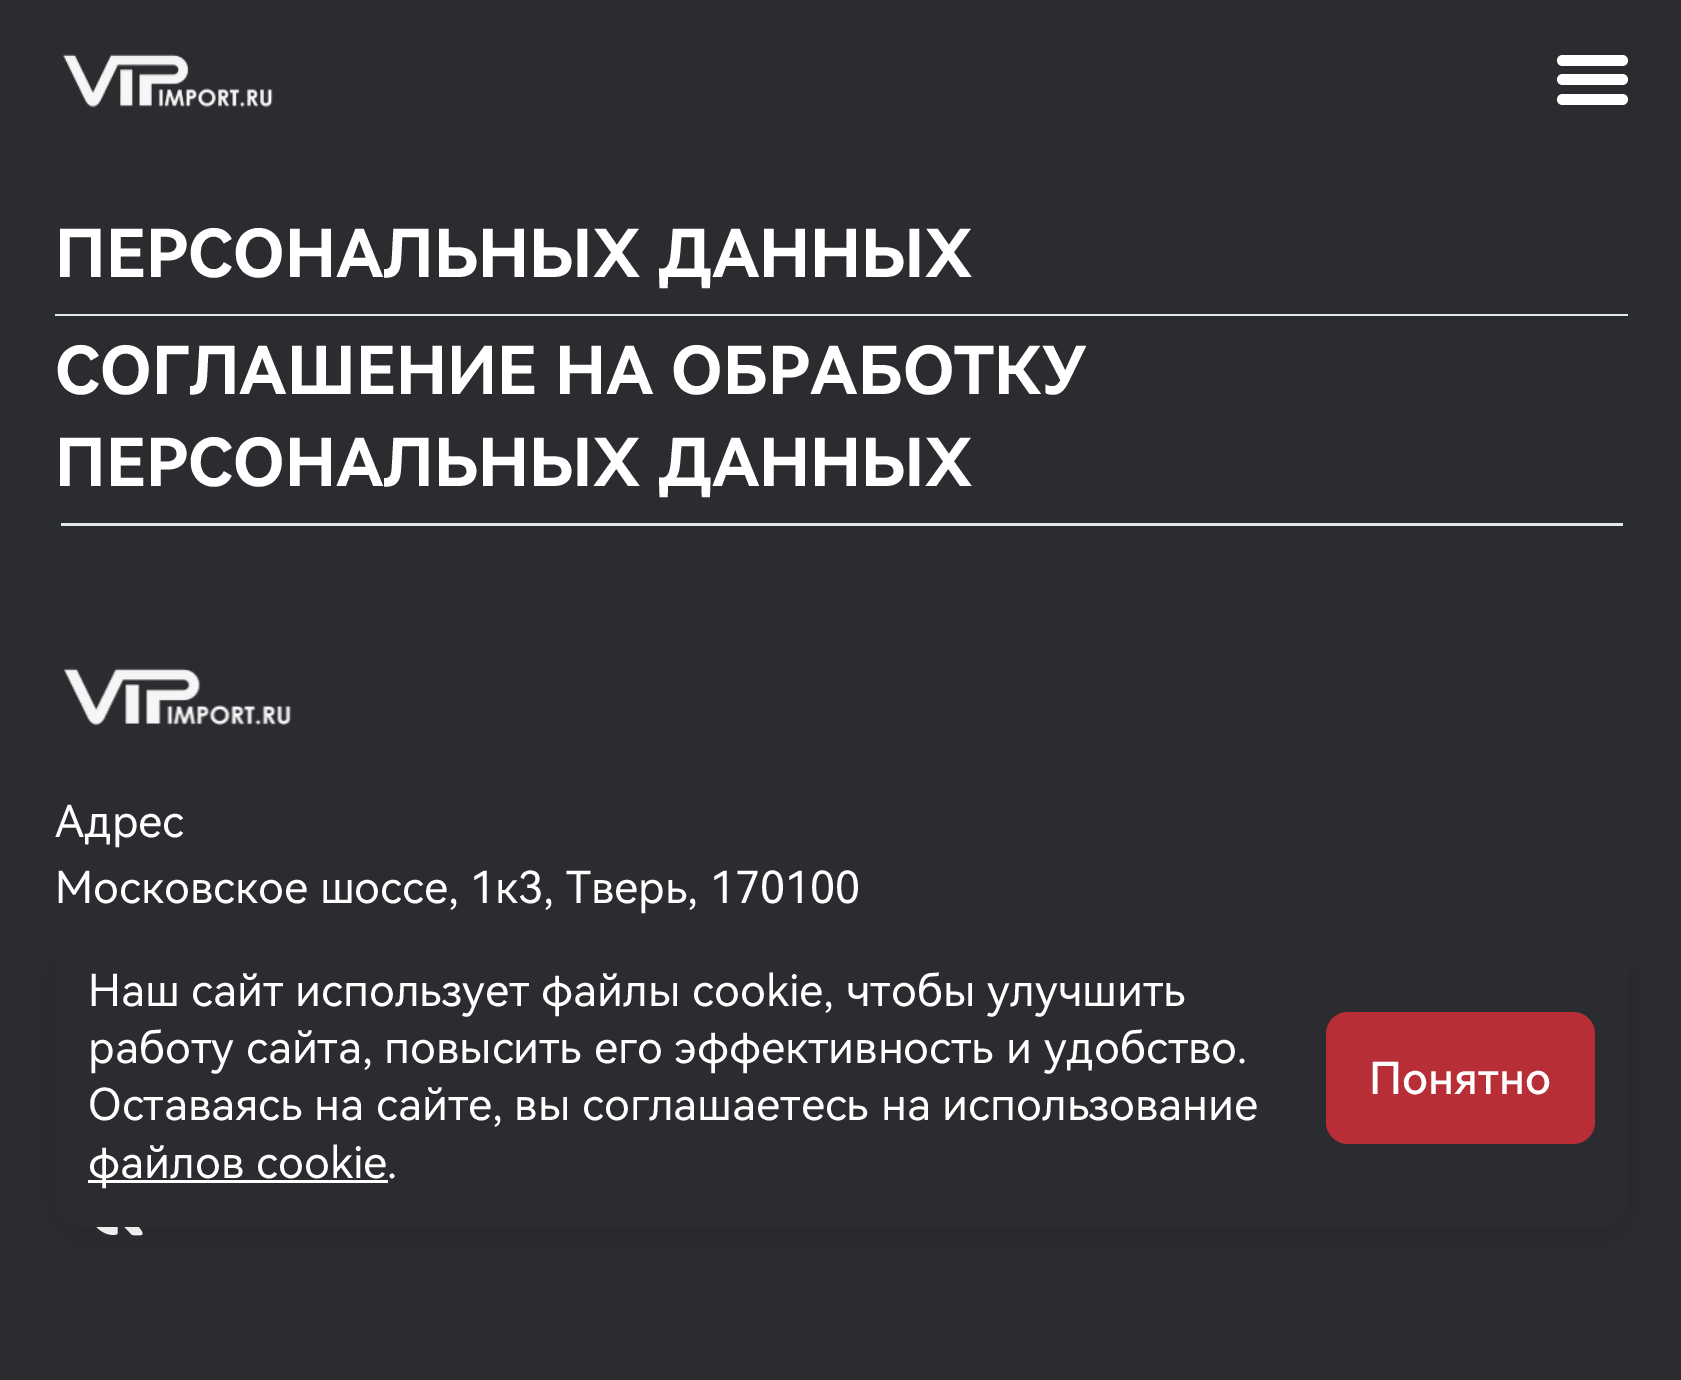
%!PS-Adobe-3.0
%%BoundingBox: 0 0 1681 1380
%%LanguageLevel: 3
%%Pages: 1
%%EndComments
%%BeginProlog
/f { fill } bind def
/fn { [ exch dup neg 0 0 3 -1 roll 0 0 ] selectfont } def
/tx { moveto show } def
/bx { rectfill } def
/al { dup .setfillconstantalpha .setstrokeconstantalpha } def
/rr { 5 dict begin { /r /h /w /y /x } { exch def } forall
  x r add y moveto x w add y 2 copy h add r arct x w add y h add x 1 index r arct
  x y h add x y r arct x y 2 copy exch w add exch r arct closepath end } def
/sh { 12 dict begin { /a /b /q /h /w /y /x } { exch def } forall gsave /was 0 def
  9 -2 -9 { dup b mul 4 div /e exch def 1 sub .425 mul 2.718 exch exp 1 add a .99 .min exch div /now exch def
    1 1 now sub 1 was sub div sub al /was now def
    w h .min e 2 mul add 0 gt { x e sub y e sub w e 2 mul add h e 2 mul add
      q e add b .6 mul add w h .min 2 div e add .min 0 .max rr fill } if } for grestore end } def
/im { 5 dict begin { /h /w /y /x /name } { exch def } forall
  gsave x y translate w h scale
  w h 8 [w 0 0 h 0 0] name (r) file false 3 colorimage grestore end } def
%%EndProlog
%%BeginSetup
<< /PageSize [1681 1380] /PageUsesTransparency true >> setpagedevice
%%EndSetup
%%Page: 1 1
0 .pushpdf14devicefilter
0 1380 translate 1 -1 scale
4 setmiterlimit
0.169 0.173 0.188 setrgbcolor
0 0 1681 1380 bx
(image0.raw) 63 54 210 54 im
1 setgray
1557 55 71 11 5.5 rr f
1557 74 71 11 5.5 rr f
1557 94 71 11 5.5 rr f
0.89 0.906 0.937 setrgbcolor
55 314 1573 2 bx
/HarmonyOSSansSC-Bold 66 fn
1 setgray
(ПЕРСОНАЛЬНЫХ ДАННЫХ) 55 277 tx
0.89 0.906 0.937 setrgbcolor
61 523 1562 3 bx
1 setgray
(СОГЛАШЕНИЕ НА ОБРАБОТКУ) 55 394 tx
(ПЕРСОНАЛЬНЫХ ДАННЫХ) 55 486 tx
(image1.raw) 64 668 228 58 im
/HarmonyOSSansSC-Regular 44 fn
(Адрес) 55 837 tx
(Московское шоссе, 1к3, Тверь, 170100) 55 903 tx
(image2.raw) 96 1227 47 9 im
0 setgray
55 943 1573 295 28 20.5 0.1 sh
0.169 0.173 0.188 setrgbcolor
55 932 1573 295 28 rr f
1 setgray
(Наш сайт использует файлы cookie, чтобы улучшить) 88 1006 tx
(работу сайта, повысить его эффективность и удобство.) 88 1063 tx
(Оставаясь на сайте, вы соглашаетесь на использование) 88 1120 tx
88 1180 300 3 bx
(файлов cookie.) 88 1178 tx
0.655 0 0.039 setrgbcolor
1326 1012 269 132 22 rr f
0.18 al
1 setgray
1326 1012 269 132 22 rr f
/HarmonyOSSansSC-Medium 44 fn
1 al
(Понятно) 1369 1094 tx
.poppdf14devicefilter showpage
%%EOF
